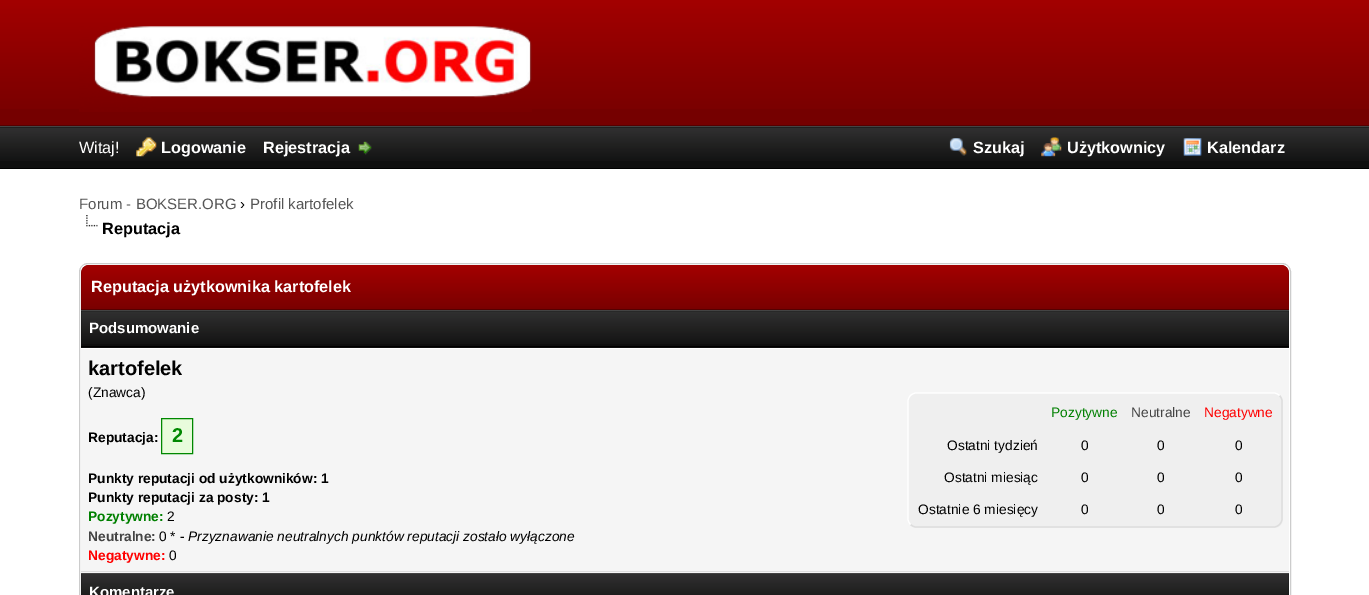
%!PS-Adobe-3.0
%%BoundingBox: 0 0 1369 595
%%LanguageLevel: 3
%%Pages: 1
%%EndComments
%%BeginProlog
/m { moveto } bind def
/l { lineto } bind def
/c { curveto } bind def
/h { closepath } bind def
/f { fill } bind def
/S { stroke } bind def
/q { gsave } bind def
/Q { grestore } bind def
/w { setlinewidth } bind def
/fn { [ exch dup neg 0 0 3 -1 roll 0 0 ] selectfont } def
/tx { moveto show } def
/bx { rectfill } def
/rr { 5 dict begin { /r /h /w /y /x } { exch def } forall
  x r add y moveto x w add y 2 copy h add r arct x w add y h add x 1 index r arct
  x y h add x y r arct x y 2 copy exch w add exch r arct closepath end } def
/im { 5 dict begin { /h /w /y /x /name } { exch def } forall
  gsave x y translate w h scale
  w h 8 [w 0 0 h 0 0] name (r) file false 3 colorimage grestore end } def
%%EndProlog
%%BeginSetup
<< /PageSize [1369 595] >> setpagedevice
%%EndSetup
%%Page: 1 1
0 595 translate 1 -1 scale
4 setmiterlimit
0.459 0 0 setrgbcolor
0 0 1369 595 bx
(image0.raw) 0 0 1369 109 im
0.333 0 0 setrgbcolor
0 125 1369 1 bx
(image1.raw) 79 26 453 86 im
0.059 setgray
0 127 1369 41 bx
(image2.raw) 0 127 1369 34 im
0.267 setgray
0 126 1369 1 bx
0 setgray
0 168 1369 1 bx
/LiberationSans-Regular 16.25 fn
1 setgray
(Witaj!) 79 153 tx
(image3.raw) 136 137 21 20 im
/LiberationSans-Bold 16.25 fn
(Logowanie) 161 153 tx
(Rejestracja) 263 153 tx
(image4.raw) 358 141 14 14 im
(image5.raw) 949 138 18 18 im
(Szukaj) 973 153 tx
(image6.raw) 1041 137 21 20 im
(Użytkownicy) 1067 153 tx
(image7.raw) 1183 138 19 18 im
(Kalendarz) 1207 153 tx
0 169 1369 426 bx
/LiberationSans-Regular 15 fn
0.333 setgray
(Forum - BOKSER.ORG) 79 209 tx
0 setgray
(›) 240 209 tx
0.333 setgray
(Profil kartofelek) 250 209 tx
(image8.raw) 86 215 12 12 im
/LiberationSans-Bold 16.25 fn
0 setgray
(Reputacja) 102 234 tx
0.8 setgray
79.5 263.5 1211 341 8.5 rr S
0.459 0 0 setrgbcolor
89 265 m 1281 265 l 1285.5 265 1289 268.5 1289 273 c 1289 310 l 81 310 l 81 273 l 81 268.5 84.5 265 89 265 c h f
(image9.raw) 81 265 1208 44 im
0.333 0 0 setrgbcolor
81 309 1208 1 bx
1 setgray
(Reputacja użytkownika kartofelek) 91 292 tx
0.059 setgray
81 311 1208 37 bx
(image10.raw) 81 311 1208 33 im
0.267 setgray
81 310 1208 1 bx
0 setgray
81 346 1208 1 bx
/LiberationSans-Bold 15 fn
1 setgray
(Podsumowanie) 89 333 tx
0.961 setgray
81 349 1208 224 bx
0.867 setgray
81 571 1208 1 bx
/LiberationSans-Bold 20 fn
0 setgray
(kartofelek) 88 375 tx
/LiberationSans-Regular 13.75 fn
(\(Znawca\)) 88 397 tx
/LiberationSans-Bold 13.75 fn
(Reputacja:) 88 442 tx
0.91 0.988 0.863 setrgbcolor
161.5 418.5 m 192.5 418.5 l 192.5 453.5 l 161.5 453.5 l h q f Q
0 0.533 0 setrgbcolor
S
/LiberationSans-Bold 20 fn
(2) 172 442 tx
/LiberationSans-Bold 13.75 fn
0 setgray
(Punkty reputacji od użytkowników: 1) 88 483 tx
(Punkty reputacji za posty: 1) 88 502 tx
0 0.502 0 setrgbcolor
(Pozytywne:) 88 521 tx
/LiberationSans-Regular 13.75 fn
0 setgray
(2) 167 521 tx
/LiberationSans-Bold 13.75 fn
0.267 setgray
(Neutralne:) 88 541 tx
/LiberationSans-Regular 13.75 fn
0 setgray
(0 * -) 159 541 tx
/LiberationSans-Italic 13.75 fn
(Przyznawanie neutralnych punktów reputacji zostało wyłączone) 188 541 tx
/LiberationSans-Bold 13.75 fn
1 0 0 setrgbcolor
(Negatywne:) 88 560 tx
/LiberationSans-Regular 13.75 fn
0 setgray
(0) 169 560 tx
0.937 setgray
908 393 375 135 9 rr f
0.867 setgray
1.2 w
1279.5 395.5 m 1281 397 1282 399 1282 401 c 1282 519 l 1282 521 1281 523 1279.5 524.5 c 1278 526 1276 527 1274 527 c 916 527 l 914 527 912 526 910.5 524.5 c S
1 setgray
910.5 524.5 m 909 523 908 521 908 519 c 908 401 l 908 399 909 397 910.5 395.5 c 912 394 914 393 916 393 c 1274 393 l 1276 393 1278 394 1279.5 395.5 c S
0 0.502 0 setrgbcolor
(Pozytywne) 1051 417 tx
0.267 setgray
(Neutralne) 1131 417 tx
1 0 0 setrgbcolor
(Negatywne) 1204 417 tx
0 setgray
(Ostatni tydzień) 947 450 tx
(0) 1081 450 tx
(0) 1157 450 tx
(0) 1235 450 tx
(Ostatni miesiąc) 944 482 tx
(0) 1081 482 tx
(0) 1157 482 tx
(0) 1235 482 tx
(Ostatnie 6 miesięcy) 918 514 tx
(0) 1081 514 tx
(0) 1157 514 tx
(0) 1235 514 tx
(image11.raw) 81 574 1208 21 im
0.267 setgray
81 573 1208 1 bx
/LiberationSans-Bold 15 fn
1 setgray
(Komentarze) 89 597 tx
showpage
%%EOF
